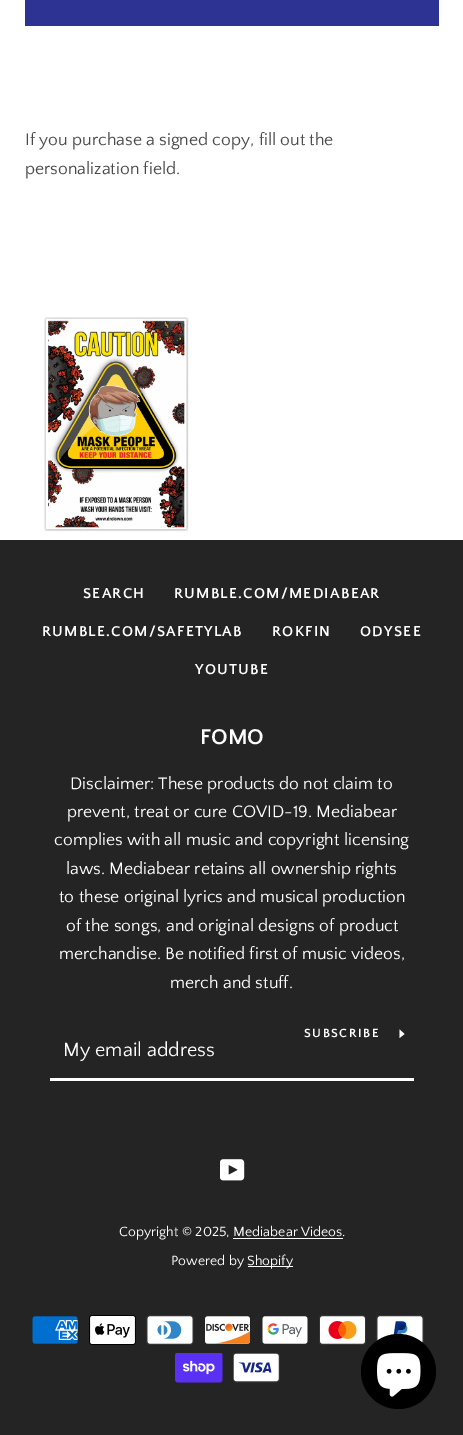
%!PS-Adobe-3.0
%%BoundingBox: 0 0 463 1435
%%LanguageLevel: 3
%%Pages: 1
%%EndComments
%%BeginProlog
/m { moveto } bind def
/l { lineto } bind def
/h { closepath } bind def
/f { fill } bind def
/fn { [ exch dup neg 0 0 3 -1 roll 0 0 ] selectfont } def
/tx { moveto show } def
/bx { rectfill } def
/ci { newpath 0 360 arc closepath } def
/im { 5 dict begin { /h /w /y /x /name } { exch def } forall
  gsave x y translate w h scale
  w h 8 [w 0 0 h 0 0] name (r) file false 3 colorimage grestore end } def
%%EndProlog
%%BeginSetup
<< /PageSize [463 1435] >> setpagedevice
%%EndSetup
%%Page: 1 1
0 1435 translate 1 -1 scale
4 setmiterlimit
0.141 setgray
0 0 463 1435 bx
1 setgray
0 0 463 540 bx
0.173 0.2 0.576 setrgbcolor
25 0 414 26 bx
/QuattrocentoSans-Regular 17.5 fn
0.29 setgray
(If you purchase a signed copy, fill out the) 25 145 tx
(personalization field.) 25 174 tx
(image0.raw) 44 317 145 215 im
/QuattrocentoSans-Bold 15 fn
1 setgray
83 598 m 1.25 0 (SEARCH) ashow
174 598 m 1.25 0 (RUMBLE.COM/MEDIABEAR) ashow
42 636 m 1.25 0 (RUMBLE.COM/SAFETYLAB) ashow
272 636 m 1.25 0 (ROKFIN) ashow
360 636 m 1.25 0 (ODYSEE) ashow
195 674 m 1.25 0 (YOUTUBE) ashow
/QuattrocentoSans-Bold 22.5 fn
(FOMO) 200 744 tx
/QuattrocentoSans-Regular 17.5 fn
(Disclaimer: These products do not claim to) 70 789 tx
(prevent, treat or cure COVID-19. Mediabear) 67 817 tx
(complies with all music and copyright licensing) 54 845 tx
(laws. Mediabear retains all ownership rights) 66 874 tx
(to these original lyrics and musical production) 59 902 tx
(of the songs, and original designs of product) 66 931 tx
(merchandise. Be notified first of music videos,) 59 959 tx
(merch and stuff.) 170 988 tx
50 1078 364 3 bx
/QuattrocentoSans-Bold 12.5 fn
304 1037 m 1.5 0 (SUBSCRIBE) ashow
404.5 1034 m 399.5 1038 l 399.5 1029.5 l h f
/QuattrocentoSans-Regular 20 fn
(My email address) 63 1056 tx
(image1.raw) 220 1159 25 22 im
/QuattrocentoSans-Regular 14 fn
(Copyright © 2025, Mediabear Videos.) 119 1236 tx
233 1238 110 1 bx
(Powered by) 171 1265 tx
248 1266 45 1 bx
(Shopify) 247 1265 tx
(image2.raw) 32 1316 46 28 im
(image3.raw) 89 1315 47 30 im
(image4.raw) 146 1315 48 30 im
(image5.raw) 205 1316 45 28 im
(image6.raw) 262 1316 46 28 im
(image7.raw) 319 1315 47 30 im
(image8.raw) 376 1315 48 29 im
(image9.raw) 175 1353 48 30 im
(image10.raw) 233 1353 47 30 im
0 setgray
398.5 1371.5 37.5 ci f
(image11.raw) 377 1353 44 44 im
showpage
%%EOF
